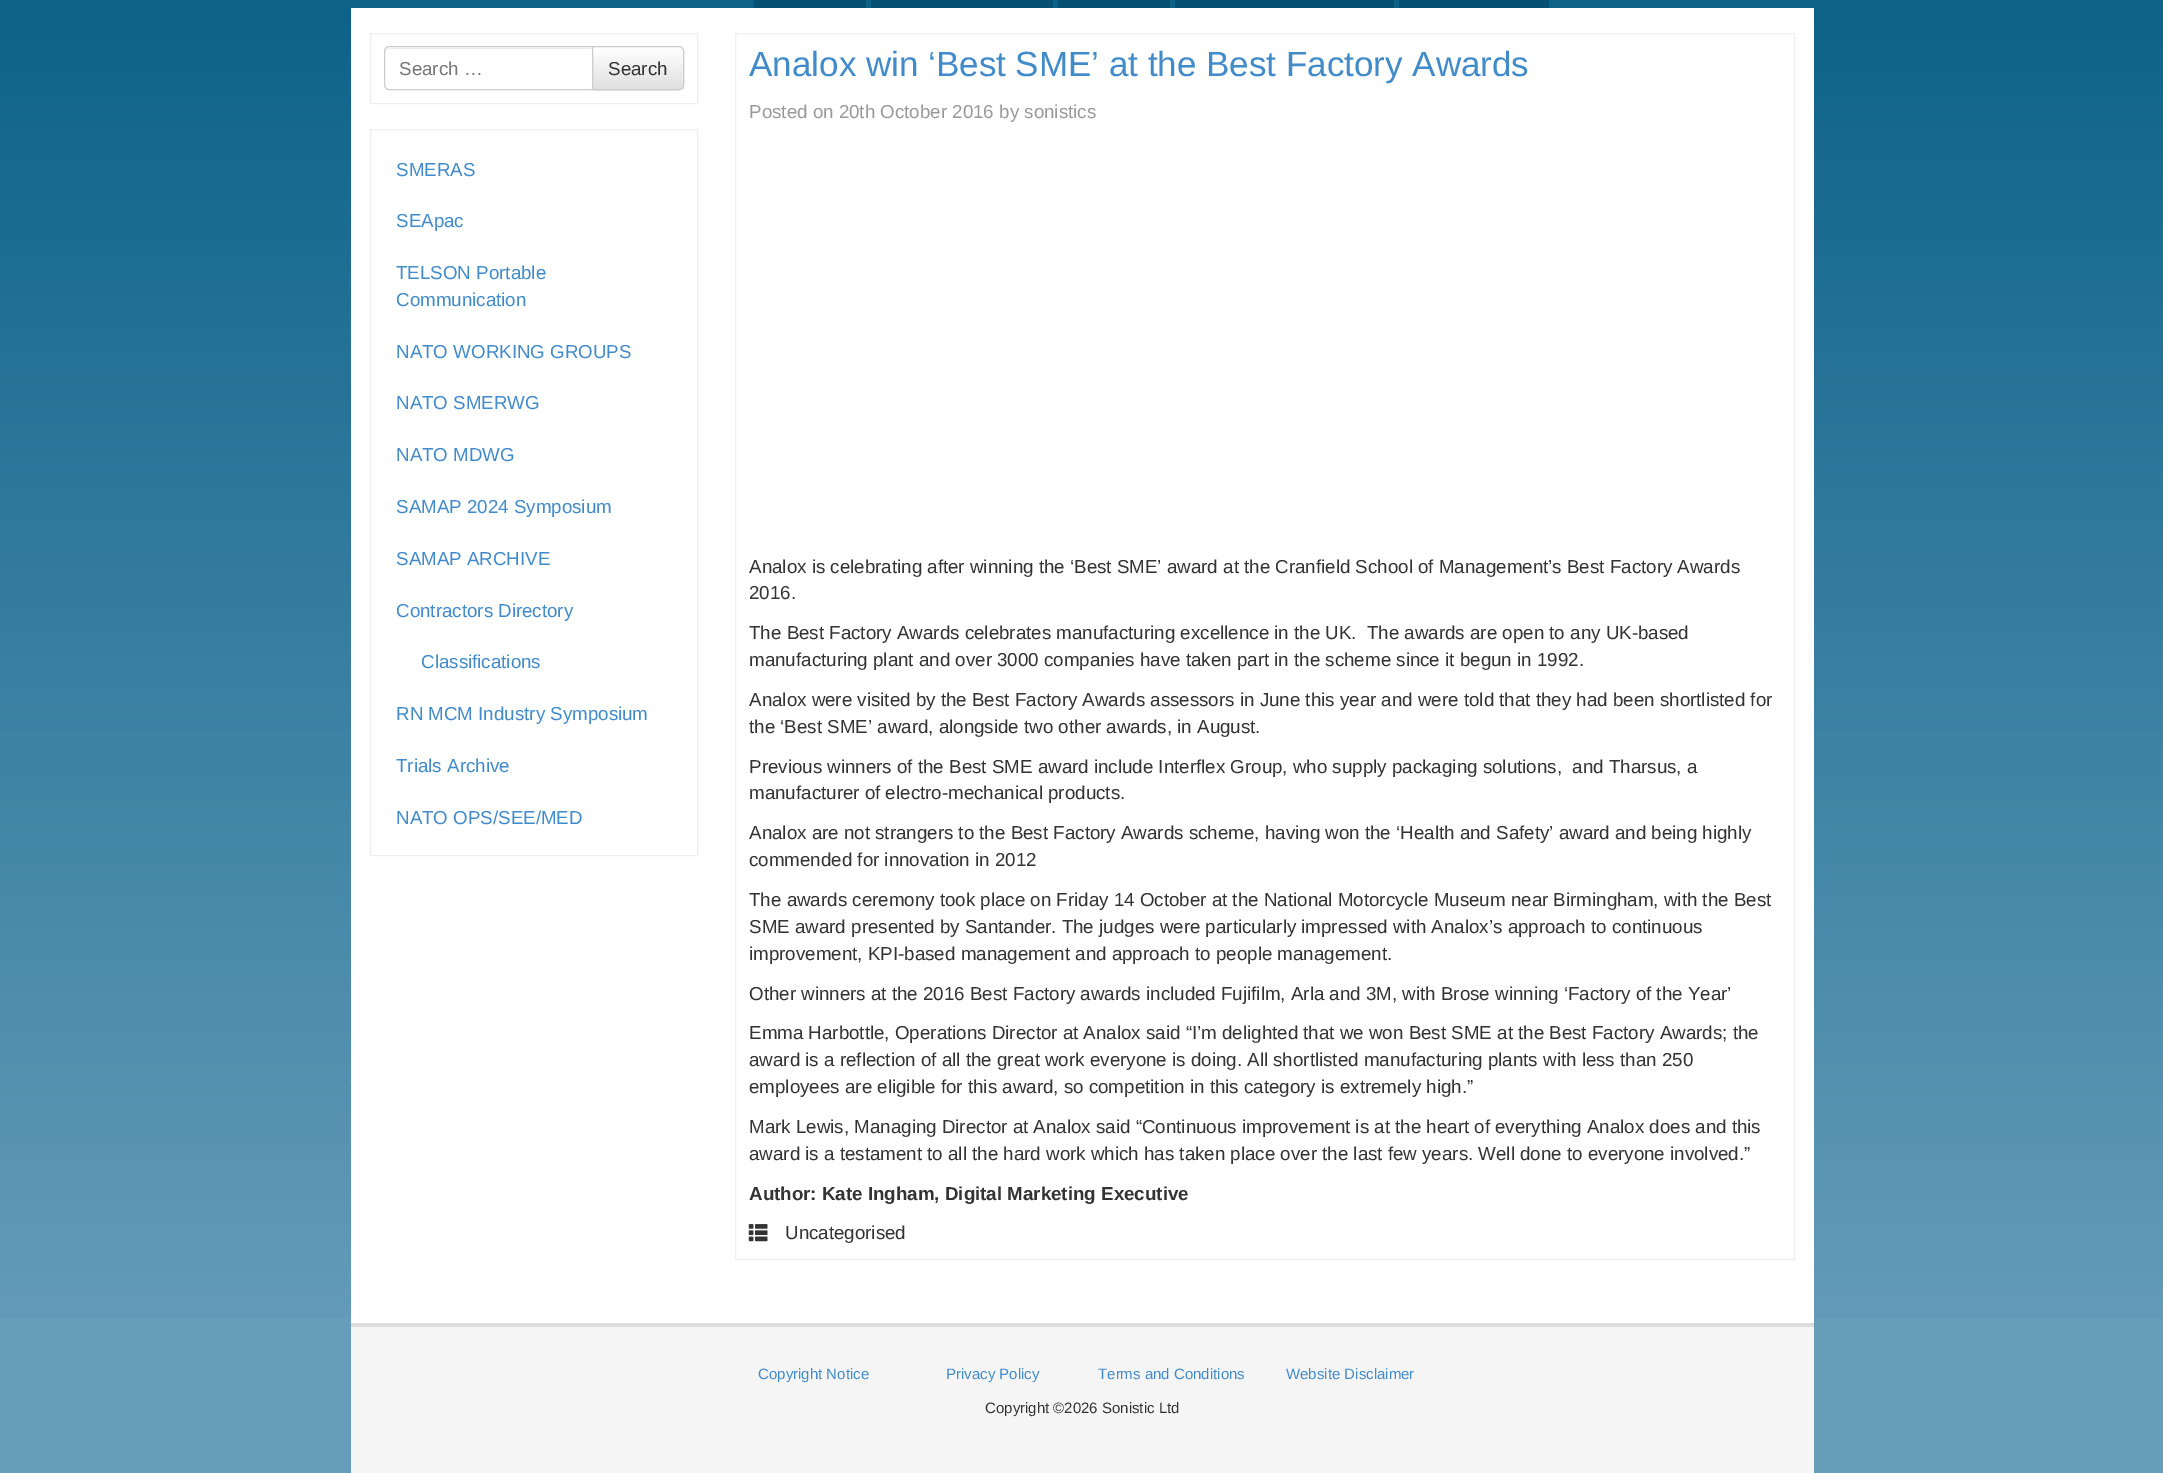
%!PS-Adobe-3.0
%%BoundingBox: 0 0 2163 1473
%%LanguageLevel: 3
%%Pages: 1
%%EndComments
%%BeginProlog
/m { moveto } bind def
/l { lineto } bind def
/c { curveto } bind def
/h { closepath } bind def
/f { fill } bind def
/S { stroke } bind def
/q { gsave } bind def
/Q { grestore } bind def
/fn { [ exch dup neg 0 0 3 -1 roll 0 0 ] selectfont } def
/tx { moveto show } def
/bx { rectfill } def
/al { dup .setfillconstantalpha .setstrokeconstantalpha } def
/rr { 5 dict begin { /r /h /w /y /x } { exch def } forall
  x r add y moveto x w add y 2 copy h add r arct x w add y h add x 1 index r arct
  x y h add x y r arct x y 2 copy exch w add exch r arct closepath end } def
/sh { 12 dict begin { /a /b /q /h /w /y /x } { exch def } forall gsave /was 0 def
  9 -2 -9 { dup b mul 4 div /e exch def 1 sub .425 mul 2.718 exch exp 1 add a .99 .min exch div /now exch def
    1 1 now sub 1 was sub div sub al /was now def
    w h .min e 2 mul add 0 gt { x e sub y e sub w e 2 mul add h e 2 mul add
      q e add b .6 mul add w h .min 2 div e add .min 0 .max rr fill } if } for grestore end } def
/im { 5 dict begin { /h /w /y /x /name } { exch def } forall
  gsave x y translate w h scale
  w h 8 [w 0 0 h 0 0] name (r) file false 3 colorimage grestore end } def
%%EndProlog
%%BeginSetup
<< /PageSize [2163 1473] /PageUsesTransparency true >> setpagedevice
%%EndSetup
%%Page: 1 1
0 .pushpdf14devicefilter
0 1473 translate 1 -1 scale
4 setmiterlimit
0.4 0.616 0.725 setrgbcolor
0 0 2163 1473 bx
q 0 0 m 2163 0 l 2163 1318 l 0 1318 l h clip newpath
<< /ShadingType 2 /ColorSpace /DeviceRGB /Coords [1082 -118 1082 1356] /Extend [true true] /Function << /FunctionType 2 /Domain [0 1] /C0 [0.02 0.365 0.525] /C1 [0.4 0.616 0.725] /N 1 >> >> shfill Q
0.024 0.314 0.447 setrgbcolor
754 0 112 8 bx
871 0 182 8 bx
1058 0 112 8 bx
1175 0 219 8 bx
1399 0 150 8 bx
1 setgray
351 8 1463 1315 bx
0.933 setgray
370.5 33.5 327 70 rectstroke
0 setgray
591 48 93 43 5 0.5 0.07 sh
1 setgray
591 46 m 679 46 l 682 46 684 48 684 51 c 684 85 l 684 88 682 90 679 90 c 591 90 l h f
q
591 46 m 679 46 l 682 46 684 48 684 51 c 684 85 l 684 88 682 90 679 90 c 591 90 l h clip newpath
q 593 48 m 684 48 l 684 89 l 593 89 l h clip newpath
<< /ShadingType 2 /ColorSpace /DeviceRGB /Coords [638 48 638 89] /Extend [true true] /Function << /FunctionType 2 /Domain [0 1] /C0 [1 1 1] /C1 [0.878 0.878 0.878] /N 1 >> >> shfill Q
Q
0.15 al
593 48 m 593 49 l 679 49 l 683 49 682 55 682 58 c 682 88 l 682 87 683 86 683 85 c 683 52 l 683 50 681 48 679 48 c h f
1 al
0.8 setgray
591.5 46.5 m 679 46.5 l 681.5 46.5 683.5 48.5 683.5 51 c 683.5 85 l 683.5 87.5 681.5 89.5 679 89.5 c 591.5 89.5 l h S
1 setgray
389 46 m 593 46 l 593 90 l 389 90 l 386 90 384 88 384 85 c 384 51 l 384 48 386 46 389 46 c h f
0.925 setgray
389 49 m 591 49 l 591 48 l 389 48 l 387 48 385 50 385 52 c 385 50 387 49 389 49 c h f
0.8 setgray
389 46.5 m 592.5 46.5 l 592.5 89.5 l 389 89.5 l 386.5 89.5 384.5 87.5 384.5 85 c 384.5 51 l 384.5 48.5 386.5 46.5 389 46.5 c h S
/LiberationSans-Regular 18.75 fn
0.467 setgray
(Search …) 399 75 tx
0.2 setgray
(Search) 608 75 tx
0.933 setgray
370.5 129.5 327 726 rectstroke
0.259 0.545 0.792 setrgbcolor
(SMERAS) 396 176 tx
(SEApac) 396 227 tx
(TELSON Portable) 396 279 tx
(Communication) 396 306 tx
(NATO WORKING GROUPS) 396 358 tx
(NATO SMERWG) 396 409 tx
(NATO MDWG) 396 461 tx
(SAMAP 2024 Symposium) 396 513 tx
(SAMAP ARCHIVE) 396 565 tx
(Contractors Directory) 396 617 tx
(Classifications) 421 668 tx
(RN MCM Industry Symposium) 396 720 tx
(Trials Archive) 396 772 tx
(NATO OPS/SEE/MED) 396 824 tx
0.933 setgray
735.5 33.5 1059 1226 rectstroke
/LiberationSans-Regular 35 fn
0.259 0.545 0.792 setrgbcolor
(Analox win ‘Best SME’ at the Best Factory Awards) 749 76 tx
/LiberationSans-Regular 18.75 fn
0.6 setgray
(Posted on 20th October 2016 by sonistics) 749 118 tx
0.2 setgray
(Analox is celebrating after winning the ‘Best SME’ award at the Cranfield School of Management’s Best Factory Awards) 749 573 tx
(2016.) 749 599 tx
(The Best Factory Awards celebrates manufacturing excellence in the UK.  The awards are open to any UK-based) 749 639 tx
(manufacturing plant and over 3000 companies have taken part in the scheme since it begun in 1992.) 749 666 tx
(Analox were visited by the Best Factory Awards assessors in June this year and were told that they had been shortlisted for) 749 706 tx
(the ‘Best SME’ award, alongside two other awards, in August.) 749 733 tx
(Previous winners of the Best SME award include Interflex Group, who supply packaging solutions,  and Tharsus, a) 749 773 tx
(manufacturer of electro-mechanical products.) 749 799 tx
(Analox are not strangers to the Best Factory Awards scheme, having won the ‘Health and Safety’ award and being highly) 749 839 tx
(commended for innovation in 2012) 749 866 tx
(The awards ceremony took place on Friday 14 October at the National Motorcycle Museum near Birmingham, with the Best) 749 906 tx
(SME award presented by Santander. The judges were particularly impressed with Analox’s approach to continuous) 749 933 tx
(improvement, KPI-based management and approach to people management.) 749 960 tx
(Other winners at the 2016 Best Factory awards included Fujifilm, Arla and 3M, with Brose winning ‘Factory of the Year’) 749 1000 tx
(Emma Harbottle, Operations Director at Analox said “I’m delighted that we won Best SME at the Best Factory Awards; the) 749 1039 tx
(award is a reflection of all the great work everyone is doing. All shortlisted manufacturing plants with less than 250) 749 1066 tx
(employees are eligible for this award, so competition in this category is extremely high.”) 749 1093 tx
(Mark Lewis, Managing Director at Analox said “Continuous improvement is at the heart of everything Analox does and this) 749 1133 tx
(award is a testament to all the hard work which has taken place over the last few years. Well done to everyone involved.”) 749 1160 tx
/LiberationSans-Bold 18.75 fn
(Author: Kate Ingham, Digital Marketing Executive) 749 1200 tx
(image0.raw) 748 1224 20 18 im
/LiberationSans-Regular 18.75 fn
(Uncategorised) 785 1239 tx
0.961 setgray
351 1327 1463 146 bx
0.867 setgray
351 1323 1463 4 bx
/LiberationSans-Regular 15 fn
0.259 0.545 0.792 setrgbcolor
(Copyright Notice) 758 1379 tx
(Privacy Policy) 946 1379 tx
(Terms and Conditions) 1098 1379 tx
(Website Disclaimer) 1286 1379 tx
0.2 setgray
(Copyright ©2026 Sonistic Ltd) 985 1413 tx
.poppdf14devicefilter showpage
%%EOF
